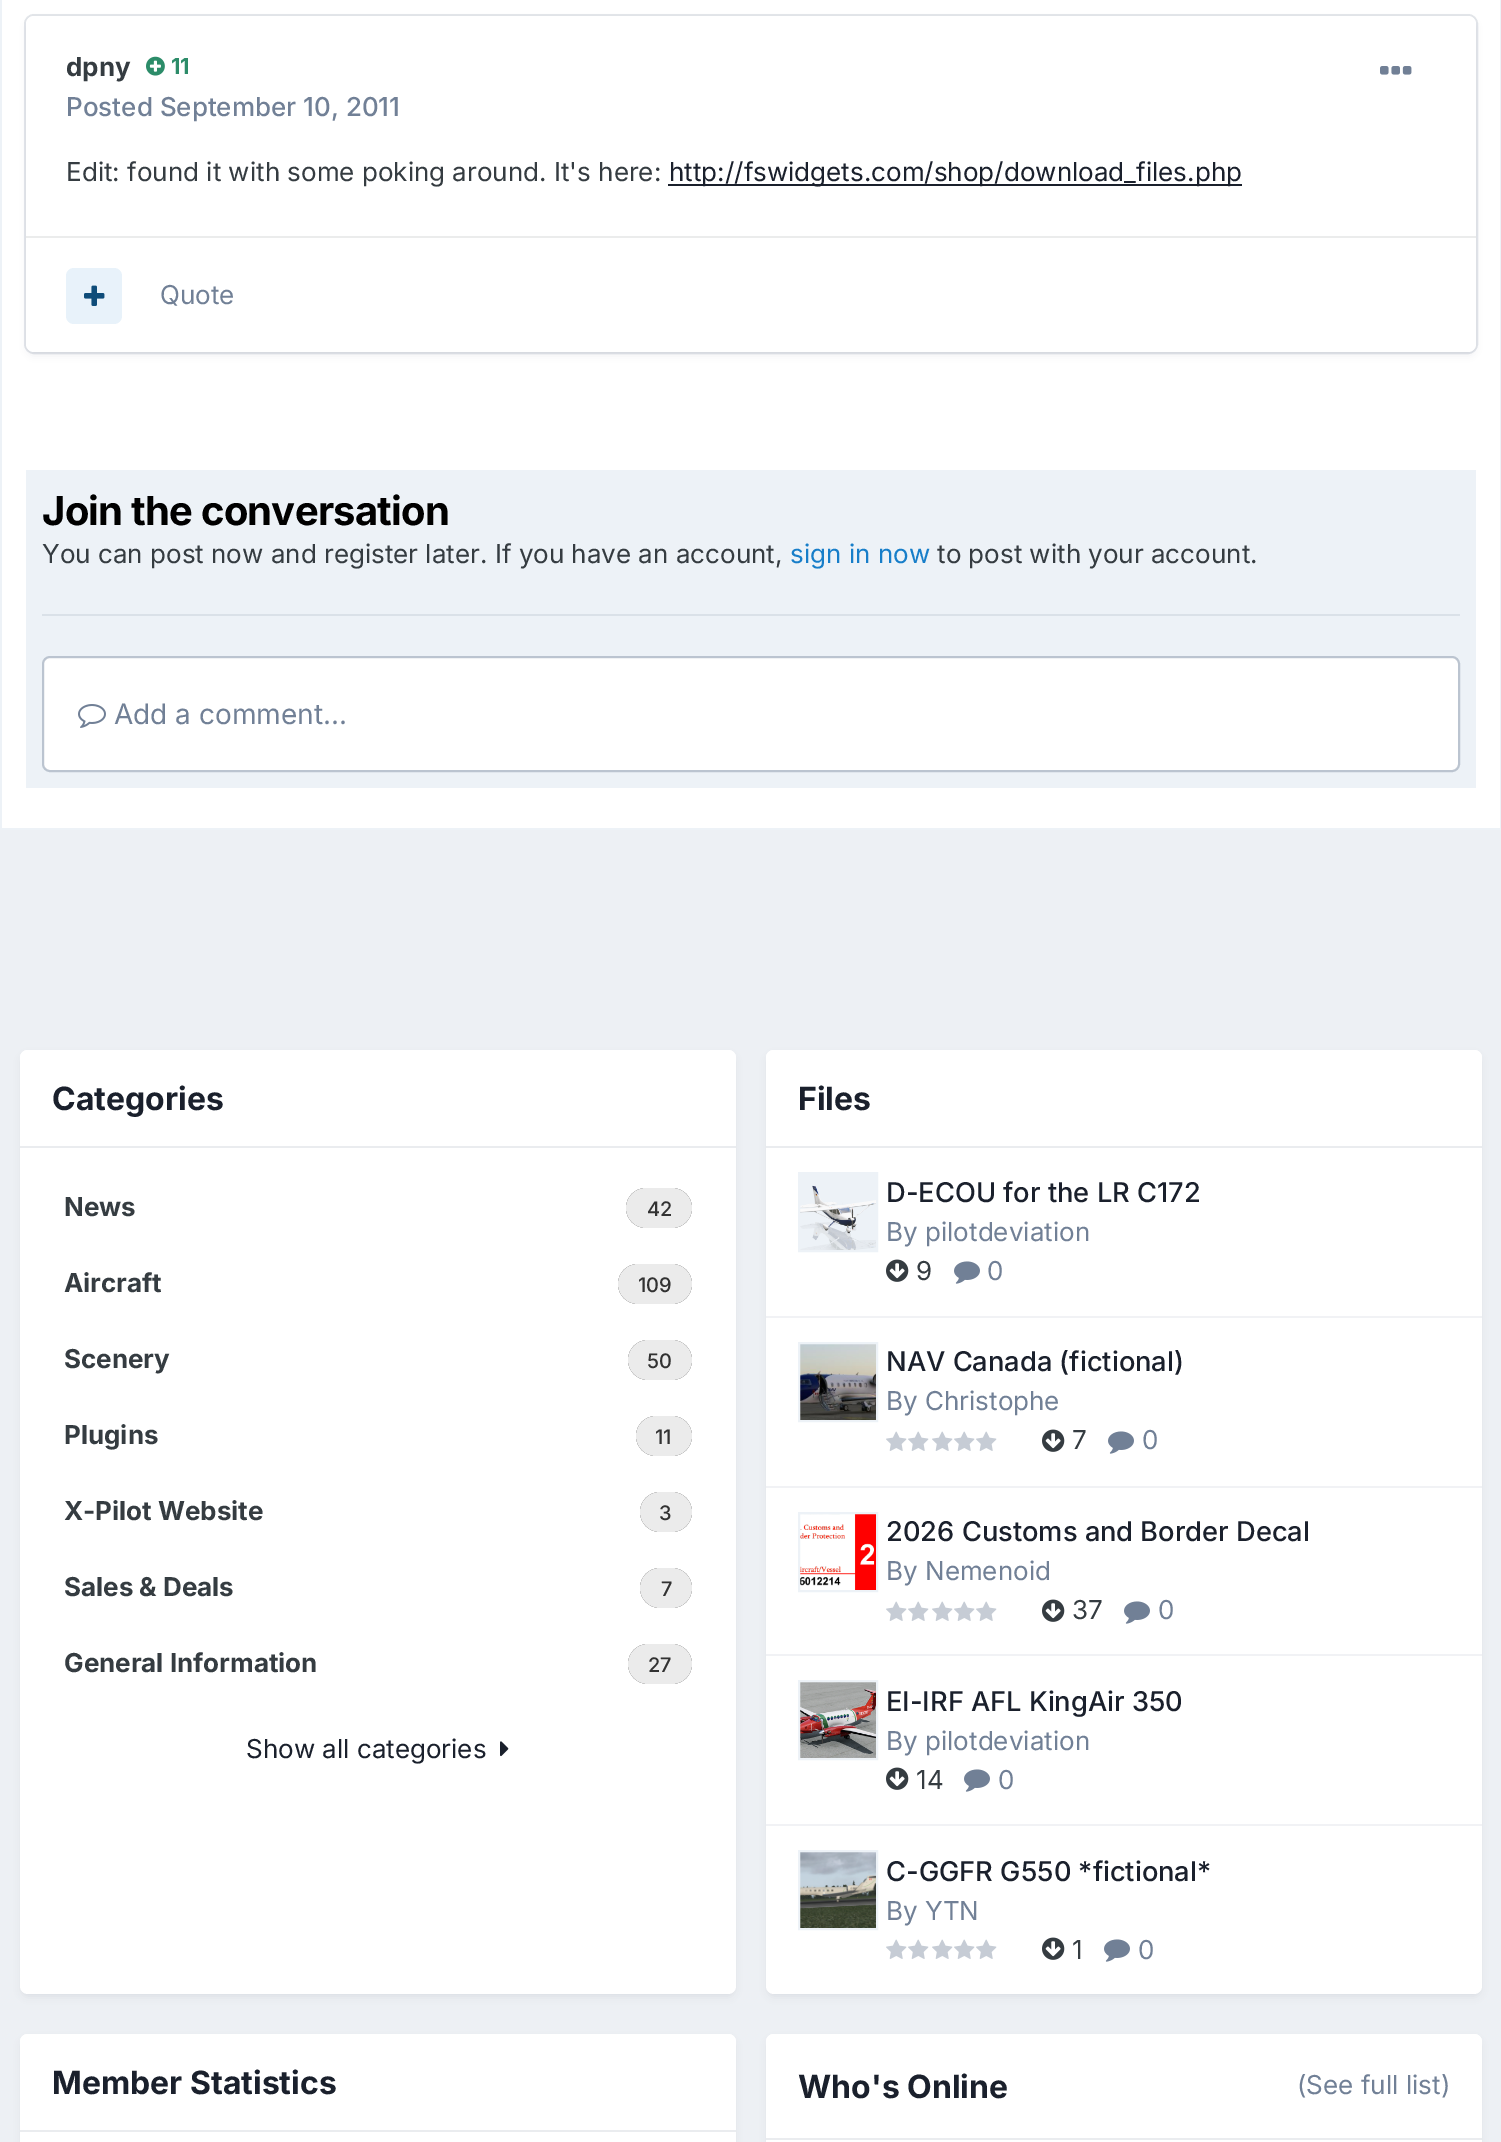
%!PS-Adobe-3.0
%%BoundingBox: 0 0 1501 2142
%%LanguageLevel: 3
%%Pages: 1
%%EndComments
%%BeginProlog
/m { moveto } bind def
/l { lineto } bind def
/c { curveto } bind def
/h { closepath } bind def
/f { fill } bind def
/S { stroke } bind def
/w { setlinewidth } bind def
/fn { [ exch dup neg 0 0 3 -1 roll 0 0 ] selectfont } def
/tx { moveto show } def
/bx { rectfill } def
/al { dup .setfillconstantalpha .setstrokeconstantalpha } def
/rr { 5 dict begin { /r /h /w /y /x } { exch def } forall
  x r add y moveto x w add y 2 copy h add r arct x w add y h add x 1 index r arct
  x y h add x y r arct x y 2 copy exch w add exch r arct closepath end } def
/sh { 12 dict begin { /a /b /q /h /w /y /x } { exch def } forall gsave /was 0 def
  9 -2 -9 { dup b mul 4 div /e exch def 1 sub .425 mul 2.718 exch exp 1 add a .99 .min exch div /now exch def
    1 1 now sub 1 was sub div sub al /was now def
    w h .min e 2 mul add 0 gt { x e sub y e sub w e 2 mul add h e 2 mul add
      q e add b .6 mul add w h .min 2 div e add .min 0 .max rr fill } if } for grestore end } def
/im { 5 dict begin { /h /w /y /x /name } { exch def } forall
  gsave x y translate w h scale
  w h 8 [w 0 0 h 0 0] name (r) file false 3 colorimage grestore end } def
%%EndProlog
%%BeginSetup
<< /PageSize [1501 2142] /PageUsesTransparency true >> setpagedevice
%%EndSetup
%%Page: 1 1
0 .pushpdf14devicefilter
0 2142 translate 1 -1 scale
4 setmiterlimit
0.929 0.941 0.957 setrgbcolor
0 0 1501 2142 bx
1 setgray
2 0 1498 828 bx
0.929 0.949 0.969 setrgbcolor
1500 0 1 830 bx
0 828 1501 2 bx
0 0 2 830 bx
0.176 0.216 0.282 setrgbcolor
28 22 1446 332 6 4 0.1 sh
0.2 al
0.443 0.502 0.588 setrgbcolor
2 w
25 15 1452 338 9 rr S
1 al
1 setgray
26 16 1450 336 8 rr f
/Inter-Bold 26 fn
0.208 0.235 0.255 setrgbcolor
(dpny) 66 76 tx
(image0.raw) 146 56 19 20 im
/Inter-Bold 22 fn
0.173 0.549 0.412 setrgbcolor
(11) 171 74 tx
/Inter-Medium 26 fn
0.443 0.502 0.588 setrgbcolor
(Posted September 10, 2011) 66 116 tx
(image1.raw) 1380 66 32 9 im
/Inter-Regular 26 fn
0.208 0.235 0.255 setrgbcolor
(Edit: found it with some poking around. It's here:) 66 181 tx
0.102 0.125 0.173 setrgbcolor
668 184 574 2 bx
(http://fswidgets.com/shop/download_files.php) 669 181 tx
0.922 0.925 0.925 setrgbcolor
26 236 1450 2 bx
0.91 0.949 0.98 setrgbcolor
66 268 56 56 8 rr f
(image2.raw) 84 285 21 21 im
0.443 0.502 0.588 setrgbcolor
(Quote) 160 304 tx
0.929 0.949 0.969 setrgbcolor
26 470 1450 318 bx
0.855 0.882 0.91 setrgbcolor
42 614 1418 2 bx
/Inter-Bold 40 fn
0 setgray
42 525 m -0.8 0 (Join the conversation) ashow
/Inter-Regular 26 fn
0.208 0.235 0.255 setrgbcolor
(You can post now and register later. If you have an account,) 42 563 tx
0.09 0.494 0.788 setrgbcolor
(sign in now) 790 563 tx
0.208 0.235 0.255 setrgbcolor
(to post with your account.) 937 563 tx
1 setgray
44 658 1414 112 6 rr f
0.4 al
0.443 0.502 0.588 setrgbcolor
43 657 1416 114 7 rr S
1 al
(image3.raw) 78 704 28 24 im
/Inter-Regular 28 fn
(Add a comment...) 114 724 tx
0.176 0.216 0.282 setrgbcolor
22 1056 712 940 6 4 0.1 sh
1 setgray
20 1050 716 944 8 rr f
28 1050 m 728 1050 l 732.5 1050 736 1053.5 736 1058 c 736 1148 l 20 1148 l 20 1058 l 20 1053.5 23.5 1050 28 1050 c h f
0.918 0.925 0.937 setrgbcolor
20 1146 716 2 bx
/Inter-Bold 32 fn
0.102 0.125 0.173 setrgbcolor
(Categories) 52 1110 tx
/Inter-Bold 26 fn
0.208 0.235 0.255 setrgbcolor
(News) 64 1216 tx
0.196 setgray
626 1188 66 40 20 rr f
0.9 al
1 setgray
626 1188 66 40 20 rr f
/Inter-Medium 20 fn
1 al
0.196 setgray
(42) 647 1216 tx
/Inter-Bold 26 fn
0.208 0.235 0.255 setrgbcolor
(Aircraft) 64 1292 tx
0.196 setgray
618 1264 74 40 20 rr f
0.9 al
1 setgray
618 1264 74 40 20 rr f
/Inter-Medium 20 fn
1 al
0.196 setgray
(109) 638 1292 tx
/Inter-Bold 26 fn
0.208 0.235 0.255 setrgbcolor
(Scenery) 64 1368 tx
0.196 setgray
628 1340 64 40 20 rr f
0.9 al
1 setgray
628 1340 64 40 20 rr f
/Inter-Medium 20 fn
1 al
0.196 setgray
(50) 647 1368 tx
/Inter-Bold 26 fn
0.208 0.235 0.255 setrgbcolor
(Plugins) 64 1444 tx
0.196 setgray
636 1416 56 40 20 rr f
0.9 al
1 setgray
636 1416 56 40 20 rr f
/Inter-Medium 20 fn
1 al
0.196 setgray
(11) 655 1444 tx
/Inter-Bold 26 fn
0.208 0.235 0.255 setrgbcolor
(X-Pilot Website) 64 1520 tx
0.196 setgray
640 1492 52 40 20 rr f
0.9 al
1 setgray
640 1492 52 40 20 rr f
/Inter-Medium 20 fn
1 al
0.196 setgray
(3) 659 1520 tx
/Inter-Bold 26 fn
0.208 0.235 0.255 setrgbcolor
(Sales & Deals) 64 1596 tx
0.196 setgray
640 1568 52 40 20 rr f
0.9 al
1 setgray
640 1568 52 40 20 rr f
/Inter-Medium 20 fn
1 al
0.196 setgray
(7) 661 1596 tx
/Inter-Bold 26 fn
0.208 0.235 0.255 setrgbcolor
(General Information) 64 1672 tx
0.196 setgray
628 1644 64 40 20 rr f
0.9 al
1 setgray
628 1644 64 40 20 rr f
/Inter-Medium 20 fn
1 al
0.196 setgray
(27) 648 1672 tx
/Inter-Regular 26 fn
0.102 0.125 0.173 setrgbcolor
(Show all categories) 246 1758 tx
(image4.raw) 500 1741 9 16 im
0.176 0.216 0.282 setrgbcolor
768 1056 712 940 6 4 0.1 sh
1 setgray
766 1050 716 944 8 rr f
774 1050 m 1474 1050 l 1478.5 1050 1482 1053.5 1482 1058 c 1482 1148 l 766 1148 l 766 1058 l 766 1053.5 769.5 1050 774 1050 c h f
0.918 0.925 0.937 setrgbcolor
766 1146 716 2 bx
/Inter-Bold 32 fn
0.102 0.125 0.173 setrgbcolor
(Files) 798 1110 tx
0.945 0.949 0.961 setrgbcolor
766 1316 716 2 bx
0.929 0.949 0.969 setrgbcolor
800 1174 76 76 bx
(image5.raw) 800 1185 76 65 im
799 1173 78 78 rectstroke
/Inter-Medium 27.25 fn
0.102 0.125 0.173 setrgbcolor
(D-ECOU for the LR C172) 886 1202 tx
/Inter-Regular 26 fn
0.443 0.502 0.588 setrgbcolor
(By pilotdeviation) 886 1241 tx
(image6.raw) 886 1259 23 23 im
0.208 0.235 0.255 setrgbcolor
(9) 916 1280 tx
(image7.raw) 954 1261 26 23 im
0.443 0.502 0.588 setrgbcolor
(0) 987 1280 tx
0.945 0.949 0.961 setrgbcolor
766 1486 716 2 bx
(image8.raw) 800 1344 76 76 im
0.929 0.949 0.969 setrgbcolor
799 1343 78 78 rectstroke
/Inter-Medium 27.25 fn
0.102 0.125 0.173 setrgbcolor
(NAV Canada \(fictional\)) 886 1371 tx
/Inter-Regular 26 fn
0.443 0.502 0.588 setrgbcolor
(By Christophe) 886 1410 tx
(image9.raw) 886 1431 21 20 im
(image9.raw) 908 1431 21 20 im
(image9.raw) 932 1431 21 20 im
(image9.raw) 954 1431 21 20 im
(image9.raw) 976 1431 21 20 im
(image6.raw) 1042 1429 23 23 im
0.208 0.235 0.255 setrgbcolor
(7) 1072 1449 tx
(image7.raw) 1108 1431 26 23 im
0.443 0.502 0.588 setrgbcolor
(0) 1142 1449 tx
0.945 0.949 0.961 setrgbcolor
766 1654 716 2 bx
(image10.raw) 800 1514 76 76 im
0.929 0.949 0.969 setrgbcolor
799 1513 78 78 rectstroke
/Inter-Medium 27.25 fn
0.102 0.125 0.173 setrgbcolor
(2026 Customs and Border Decal) 886 1541 tx
/Inter-Regular 26 fn
0.443 0.502 0.588 setrgbcolor
(By Nemenoid) 886 1580 tx
(image9.raw) 886 1601 21 20 im
(image9.raw) 908 1601 21 20 im
(image9.raw) 932 1601 21 20 im
(image9.raw) 954 1601 21 20 im
(image9.raw) 976 1601 21 20 im
(image6.raw) 1042 1599 23 23 im
0.208 0.235 0.255 setrgbcolor
(37) 1072 1619 tx
(image7.raw) 1124 1601 26 23 im
0.443 0.502 0.588 setrgbcolor
(0) 1158 1619 tx
0.945 0.949 0.961 setrgbcolor
766 1824 716 2 bx
(image11.raw) 800 1682 76 76 im
0.929 0.949 0.969 setrgbcolor
799 1681 78 78 rectstroke
/Inter-Medium 27.25 fn
0.102 0.125 0.173 setrgbcolor
(EI-IRF AFL KingAir 350) 886 1711 tx
/Inter-Regular 26 fn
0.443 0.502 0.588 setrgbcolor
(By pilotdeviation) 886 1750 tx
(image6.raw) 886 1767 23 23 im
0.208 0.235 0.255 setrgbcolor
(14) 916 1789 tx
(image7.raw) 964 1769 26 23 im
0.443 0.502 0.588 setrgbcolor
(0) 998 1789 tx
(image12.raw) 800 1852 76 76 im
0.929 0.949 0.969 setrgbcolor
799 1851 78 78 rectstroke
/Inter-Medium 27.25 fn
0.102 0.125 0.173 setrgbcolor
(C-GGFR G550 *fictional*) 886 1881 tx
/Inter-Regular 26 fn
0.443 0.502 0.588 setrgbcolor
(By YTN) 886 1920 tx
(image9.raw) 886 1939 21 20 im
(image9.raw) 908 1939 21 20 im
(image9.raw) 932 1939 21 20 im
(image9.raw) 954 1939 21 20 im
(image9.raw) 976 1939 21 20 im
(image6.raw) 1042 1937 23 23 im
0.208 0.235 0.255 setrgbcolor
(1) 1072 1959 tx
(image7.raw) 1104 1939 26 23 im
0.443 0.502 0.588 setrgbcolor
(0) 1138 1959 tx
0.176 0.216 0.282 setrgbcolor
22 2040 712 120 6 4 0.1 sh
1 setgray
20 2034 716 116 8 rr f
28 2034 m 728 2034 l 732.5 2034 736 2037.5 736 2042 c 736 2132 l 20 2132 l 20 2042 l 20 2037.5 23.5 2034 28 2034 c h f
0.918 0.925 0.937 setrgbcolor
20 2130 716 2 bx
/Inter-Bold 32 fn
0.102 0.125 0.173 setrgbcolor
(Member Statistics) 52 2094 tx
0.176 0.216 0.282 setrgbcolor
768 2040 712 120 6 4 0.1 sh
1 setgray
766 2034 716 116 8 rr f
774 2034 m 1474 2034 l 1478.5 2034 1482 2037.5 1482 2042 c 1482 2140 l 766 2140 l 766 2042 l 766 2037.5 769.5 2034 774 2034 c h f
0.918 0.925 0.937 setrgbcolor
766 2138 716 2 bx
0.102 0.125 0.173 setrgbcolor
(Who's Online) 798 2098 tx
/Inter-Regular 26 fn
0.443 0.502 0.588 setrgbcolor
(\(See full list\)) 1297 2094 tx
.poppdf14devicefilter showpage
%%EOF
